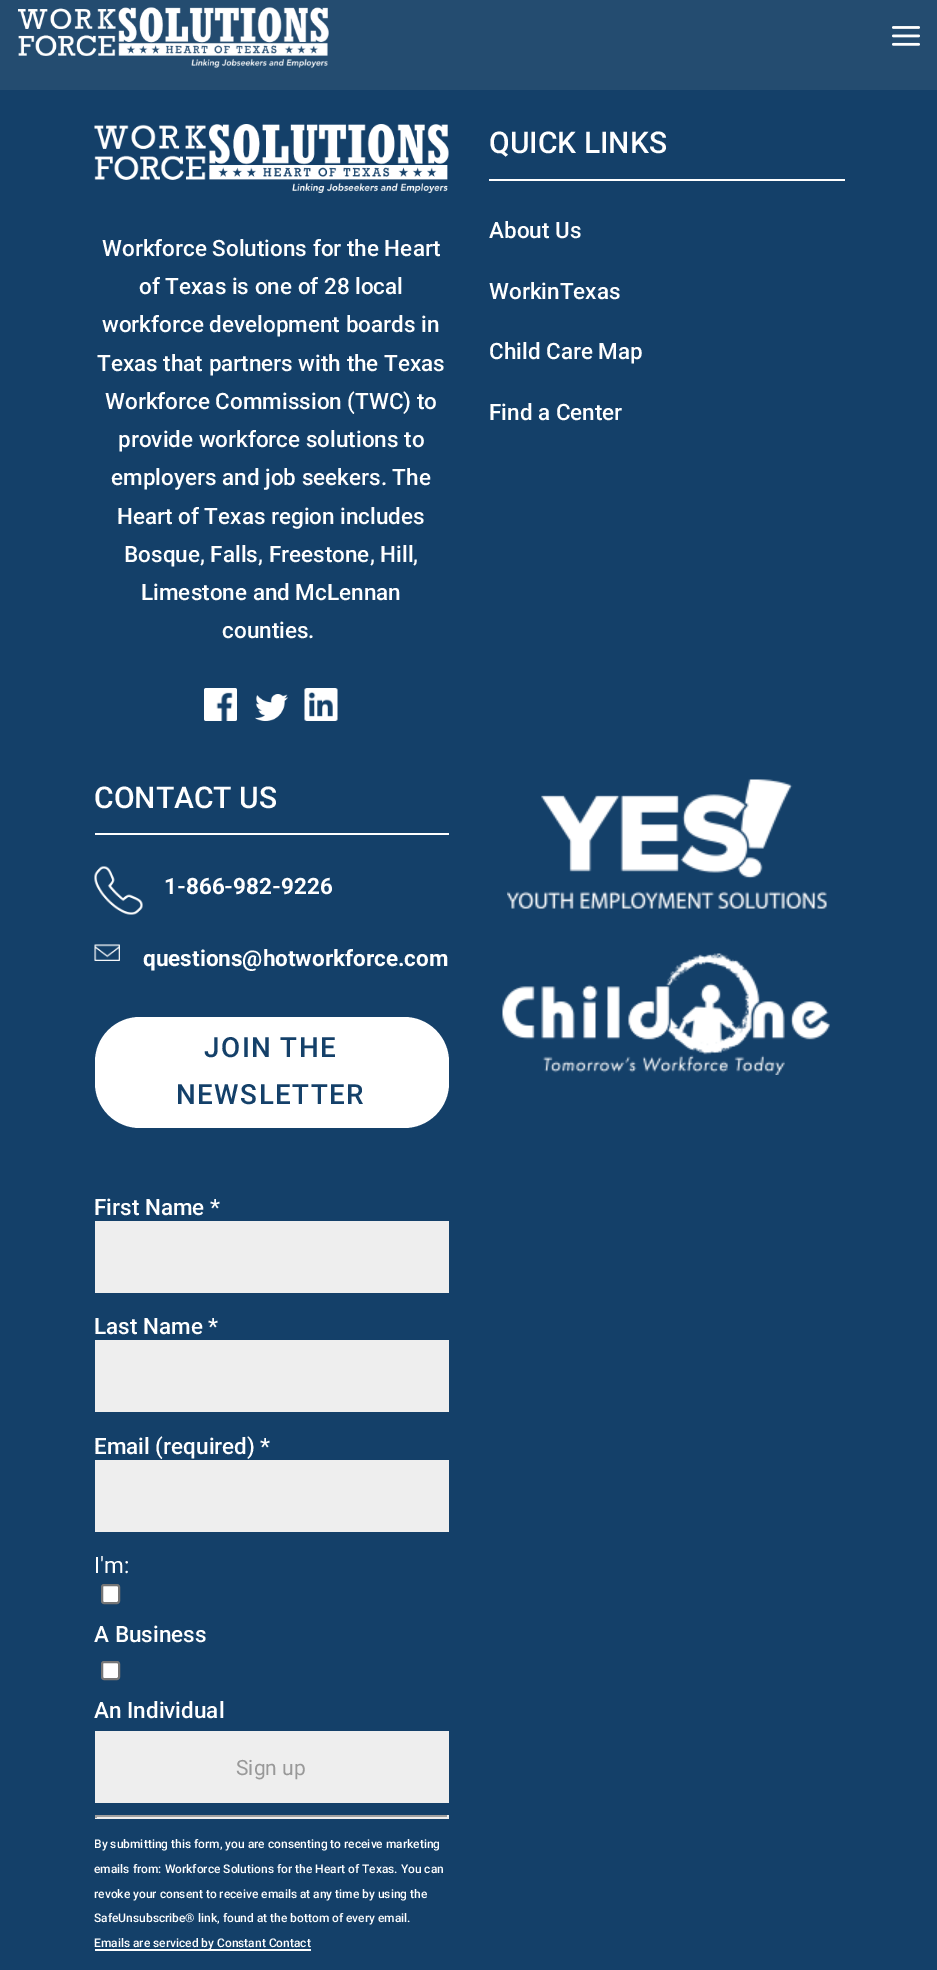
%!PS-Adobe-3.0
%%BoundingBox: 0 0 937 1970
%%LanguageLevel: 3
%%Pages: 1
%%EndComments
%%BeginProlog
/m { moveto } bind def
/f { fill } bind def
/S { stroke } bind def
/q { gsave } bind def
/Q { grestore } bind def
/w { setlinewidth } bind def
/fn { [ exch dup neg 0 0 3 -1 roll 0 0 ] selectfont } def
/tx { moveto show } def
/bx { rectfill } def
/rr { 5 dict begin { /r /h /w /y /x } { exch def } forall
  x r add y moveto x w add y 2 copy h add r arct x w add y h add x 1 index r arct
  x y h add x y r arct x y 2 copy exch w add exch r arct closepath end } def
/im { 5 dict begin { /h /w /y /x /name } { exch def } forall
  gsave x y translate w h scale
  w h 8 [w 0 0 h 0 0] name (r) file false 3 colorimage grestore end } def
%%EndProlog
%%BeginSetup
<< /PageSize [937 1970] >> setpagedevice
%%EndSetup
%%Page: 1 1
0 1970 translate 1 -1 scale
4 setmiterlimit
0.078 0.251 0.412 setrgbcolor
0 0 937 1970 bx
0.141 0.298 0.439 setrgbcolor
0 0 937 90 bx
(image0.raw) 18 7 311 61 im
(image1.raw) 892 26 28 20 im
(image2.raw) 94 124 355 69 im
/Roboto-Medium 22.5 fn
1 setgray
(Workforce Solutions for the Heart) 102 256 tx
(of Texas is one of 28 local) 139 294 tx
(workforce development boards in) 102 332 tx
(Texas that partners with the Texas) 97 371 tx
(Workforce Commission \(TWC\) to) 105 409 tx
(provide workforce solutions to) 118 447 tx
(employers and job seekers. The) 111 485 tx
(Heart of Texas region includes) 117 524 tx
(Bosque, Falls, Freestone, Hill,) 124 562 tx
(Limestone and McLennan) 141 600 tx
(counties.) 222 638 tx
(image3.raw) 204 688 33 33 im
(image4.raw) 255 694 33 27 im
(image5.raw) 304 688 34 33 im
/Roboto-Medium 30 fn
(QUICK LINKS) 489 153 tx
489 179 356 2 bx
/Roboto-Medium 22.5 fn
(About Us) 489 238 tx
(WorkinTexas) 489 299 tx
(Child Care Map) 489 359 tx
(Find a Center) 489 420 tx
/Roboto-Medium 30 fn
(CONTACT US) 94 808 tx
95 833 354 2 bx
(image6.raw) 94 866 49 49 im
/Roboto-Bold 22.5 fn
(1-866-982-9226) 164 894 tx
(image7.raw) 94 944 26 17 im
(questions@hotworkforce.com) 143 966 tx
95 1017 354 111 45 rr f
/Roboto-Medium 27.75 fn
0.078 0.251 0.412 setrgbcolor
204 1057 m 1.5 0 (JOIN THE) ashow
176 1104 m 1.5 0 (NEWSLETTER) ashow
/Roboto-Medium 22.5 fn
1 setgray
(First Name *) 94 1215 tx
0.933 setgray
95 1221 354 72 bx
1 setgray
(Last Name *) 94 1334 tx
0.933 setgray
95 1340 354 72 bx
1 setgray
(Email \(required\) *) 94 1454 tx
0.933 setgray
95 1460 354 72 bx
/Roboto-Regular 22.5 fn
1 setgray
(I'm:) 94 1573 tx
102 1585 17 18 2 rr q f Q
0.463 setgray
2 w
S
/Roboto-Medium 22.5 fn
1 setgray
(A Business) 94 1642 tx
102 1662 17 17 2 rr q f Q
0.463 setgray
S
1 setgray
(An Individual) 94 1718 tx
0.933 setgray
95 1731 354 72 bx
/Roboto-Regular 21 fn
0.6 setgray
(Sign up) 236 1775 tx
0.624 setgray
95 1815 354 2 bx
0.933 setgray
447 1815 2 3 bx
95 1817 354 2 bx
0.624 setgray
95 1815 2 3 bx
/Roboto-Medium 12 fn
1 setgray
(By submitting this form, you are consenting to receive marketing) 94 1848 tx
(emails from: Workforce Solutions for the Heart of Texas. You can) 94 1873 tx
(revoke your consent to receive emails at any time by using the) 94 1898 tx
(SafeUnsubscribe® link, found at the bottom of every email.) 94 1922 tx
95 1949 216 2 bx
(Emails are serviced by Constant Contact) 94 1947 tx
(image8.raw) 507 779 320 130 im
(image9.raw) 502 953 328 122 im
showpage
%%EOF
